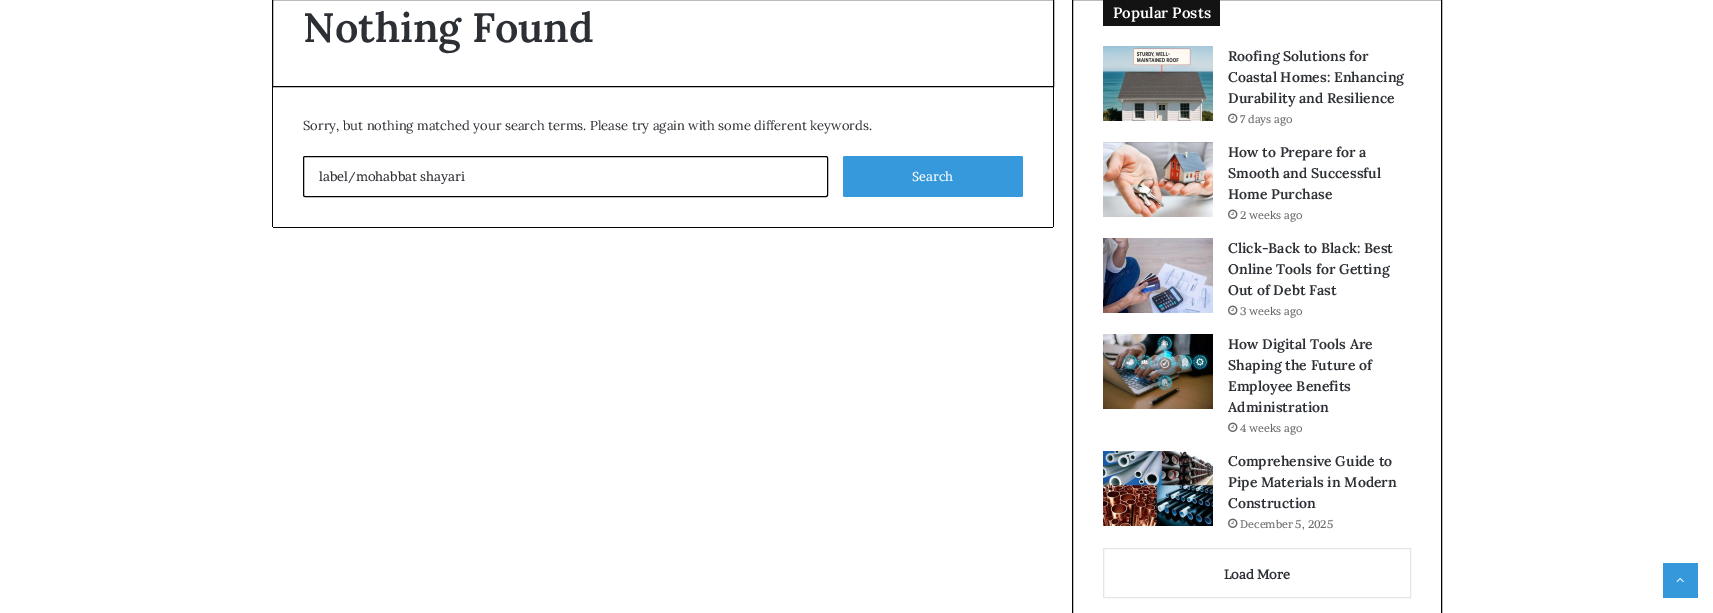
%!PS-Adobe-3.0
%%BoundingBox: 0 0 1713 613
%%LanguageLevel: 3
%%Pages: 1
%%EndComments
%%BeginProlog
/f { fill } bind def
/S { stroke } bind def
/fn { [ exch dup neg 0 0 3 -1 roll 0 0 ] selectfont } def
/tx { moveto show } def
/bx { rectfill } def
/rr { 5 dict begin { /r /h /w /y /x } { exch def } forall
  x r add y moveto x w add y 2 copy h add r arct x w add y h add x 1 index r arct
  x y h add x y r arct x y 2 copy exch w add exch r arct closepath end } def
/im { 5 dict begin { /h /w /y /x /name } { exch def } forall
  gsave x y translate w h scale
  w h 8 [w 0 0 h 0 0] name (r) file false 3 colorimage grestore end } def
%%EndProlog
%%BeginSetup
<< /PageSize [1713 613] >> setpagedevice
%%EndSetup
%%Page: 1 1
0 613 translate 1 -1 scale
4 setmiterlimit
1 setgray
0 0 1713 613 bx
0 setgray
272.5 -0.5 781 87 rectstroke
/Lora-SemiBold 41 fn
0.173 0.184 0.204 setrgbcolor
(Nothing Found) 303 42 tx
0.012 setgray
1053 87 1 140 bx
273 227 780 1 bx
272 87 1 140 bx
/Lora-Regular 13 fn
0.173 0.184 0.204 setrgbcolor
(Sorry, but nothing matched your search terms. Please try again with some different keywords.) 303 130 tx
0.012 setgray
303.5 156.5 524 40 1.5 rr S
/Brawler-Regular 13 fn
0.173 0.184 0.204 setrgbcolor
(label/mohabbat shayari) 319 181 tx
0.212 0.6 0.859 setrgbcolor
843 156 180 41 2 rr f
1 setgray
(Search) 912 181 tx
0 setgray
1072.5 -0.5 369 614 rectstroke
0.075 setgray
1103 0 117 26 bx
/Lora-SemiBold 15 fn
1 setgray
(Popular Posts) 1113 18 tx
(image0.raw) 1103 46 110 75 im
/Lora-SemiBold 14 fn
0.173 0.184 0.204 setrgbcolor
(Roofing Solutions for) 1228 61 tx
(Coastal Homes: Enhancing) 1228 82 tx
(Durability and Resilience) 1228 103 tx
(image1.raw) 1228 113 10 10 im
/Brawler-Regular 11 fn
0.4 setgray
(7 days ago) 1240 123 tx
(image2.raw) 1103 142 110 75 im
/Lora-SemiBold 14 fn
0.173 0.184 0.204 setrgbcolor
(How to Prepare for a) 1228 157 tx
(Smooth and Successful) 1228 178 tx
(Home Purchase) 1228 199 tx
(image1.raw) 1228 209 10 10 im
/Brawler-Regular 11 fn
0.4 setgray
(2 weeks ago) 1240 219 tx
(image3.raw) 1103 238 110 75 im
/Lora-SemiBold 14 fn
0.173 0.184 0.204 setrgbcolor
(Click-Back to Black: Best) 1228 253 tx
(Online Tools for Getting) 1228 274 tx
(Out of Debt Fast) 1228 295 tx
(image1.raw) 1228 305 10 10 im
/Brawler-Regular 11 fn
0.4 setgray
(3 weeks ago) 1240 315 tx
(image4.raw) 1103 334 110 75 im
/Lora-SemiBold 14 fn
0.173 0.184 0.204 setrgbcolor
(How Digital Tools Are) 1228 349 tx
(Shaping the Future of) 1228 370 tx
(Employee Benefits) 1228 391 tx
(Administration) 1228 412 tx
(image1.raw) 1228 422 10 10 im
/Brawler-Regular 11 fn
0.4 setgray
(4 weeks ago) 1240 432 tx
(image5.raw) 1103 451 110 75 im
/Lora-SemiBold 14 fn
0.173 0.184 0.204 setrgbcolor
(Comprehensive Guide to) 1228 466 tx
(Pipe Materials in Modern) 1228 487 tx
(Construction) 1228 508 tx
(image1.raw) 1228 518 10 10 im
/Brawler-Regular 11 fn
0.4 setgray
(December 5, 2025) 1240 528 tx
0.902 setgray
1103.5 548.5 307 49 rectstroke
/Brawler-Bold 13 fn
0.173 0.184 0.204 setrgbcolor
(Load More) 1224 579 tx
0.204 0.596 0.859 setrgbcolor
1663 563 35 35 bx
(image6.raw) 1676 577 8 6 im
showpage
%%EOF
